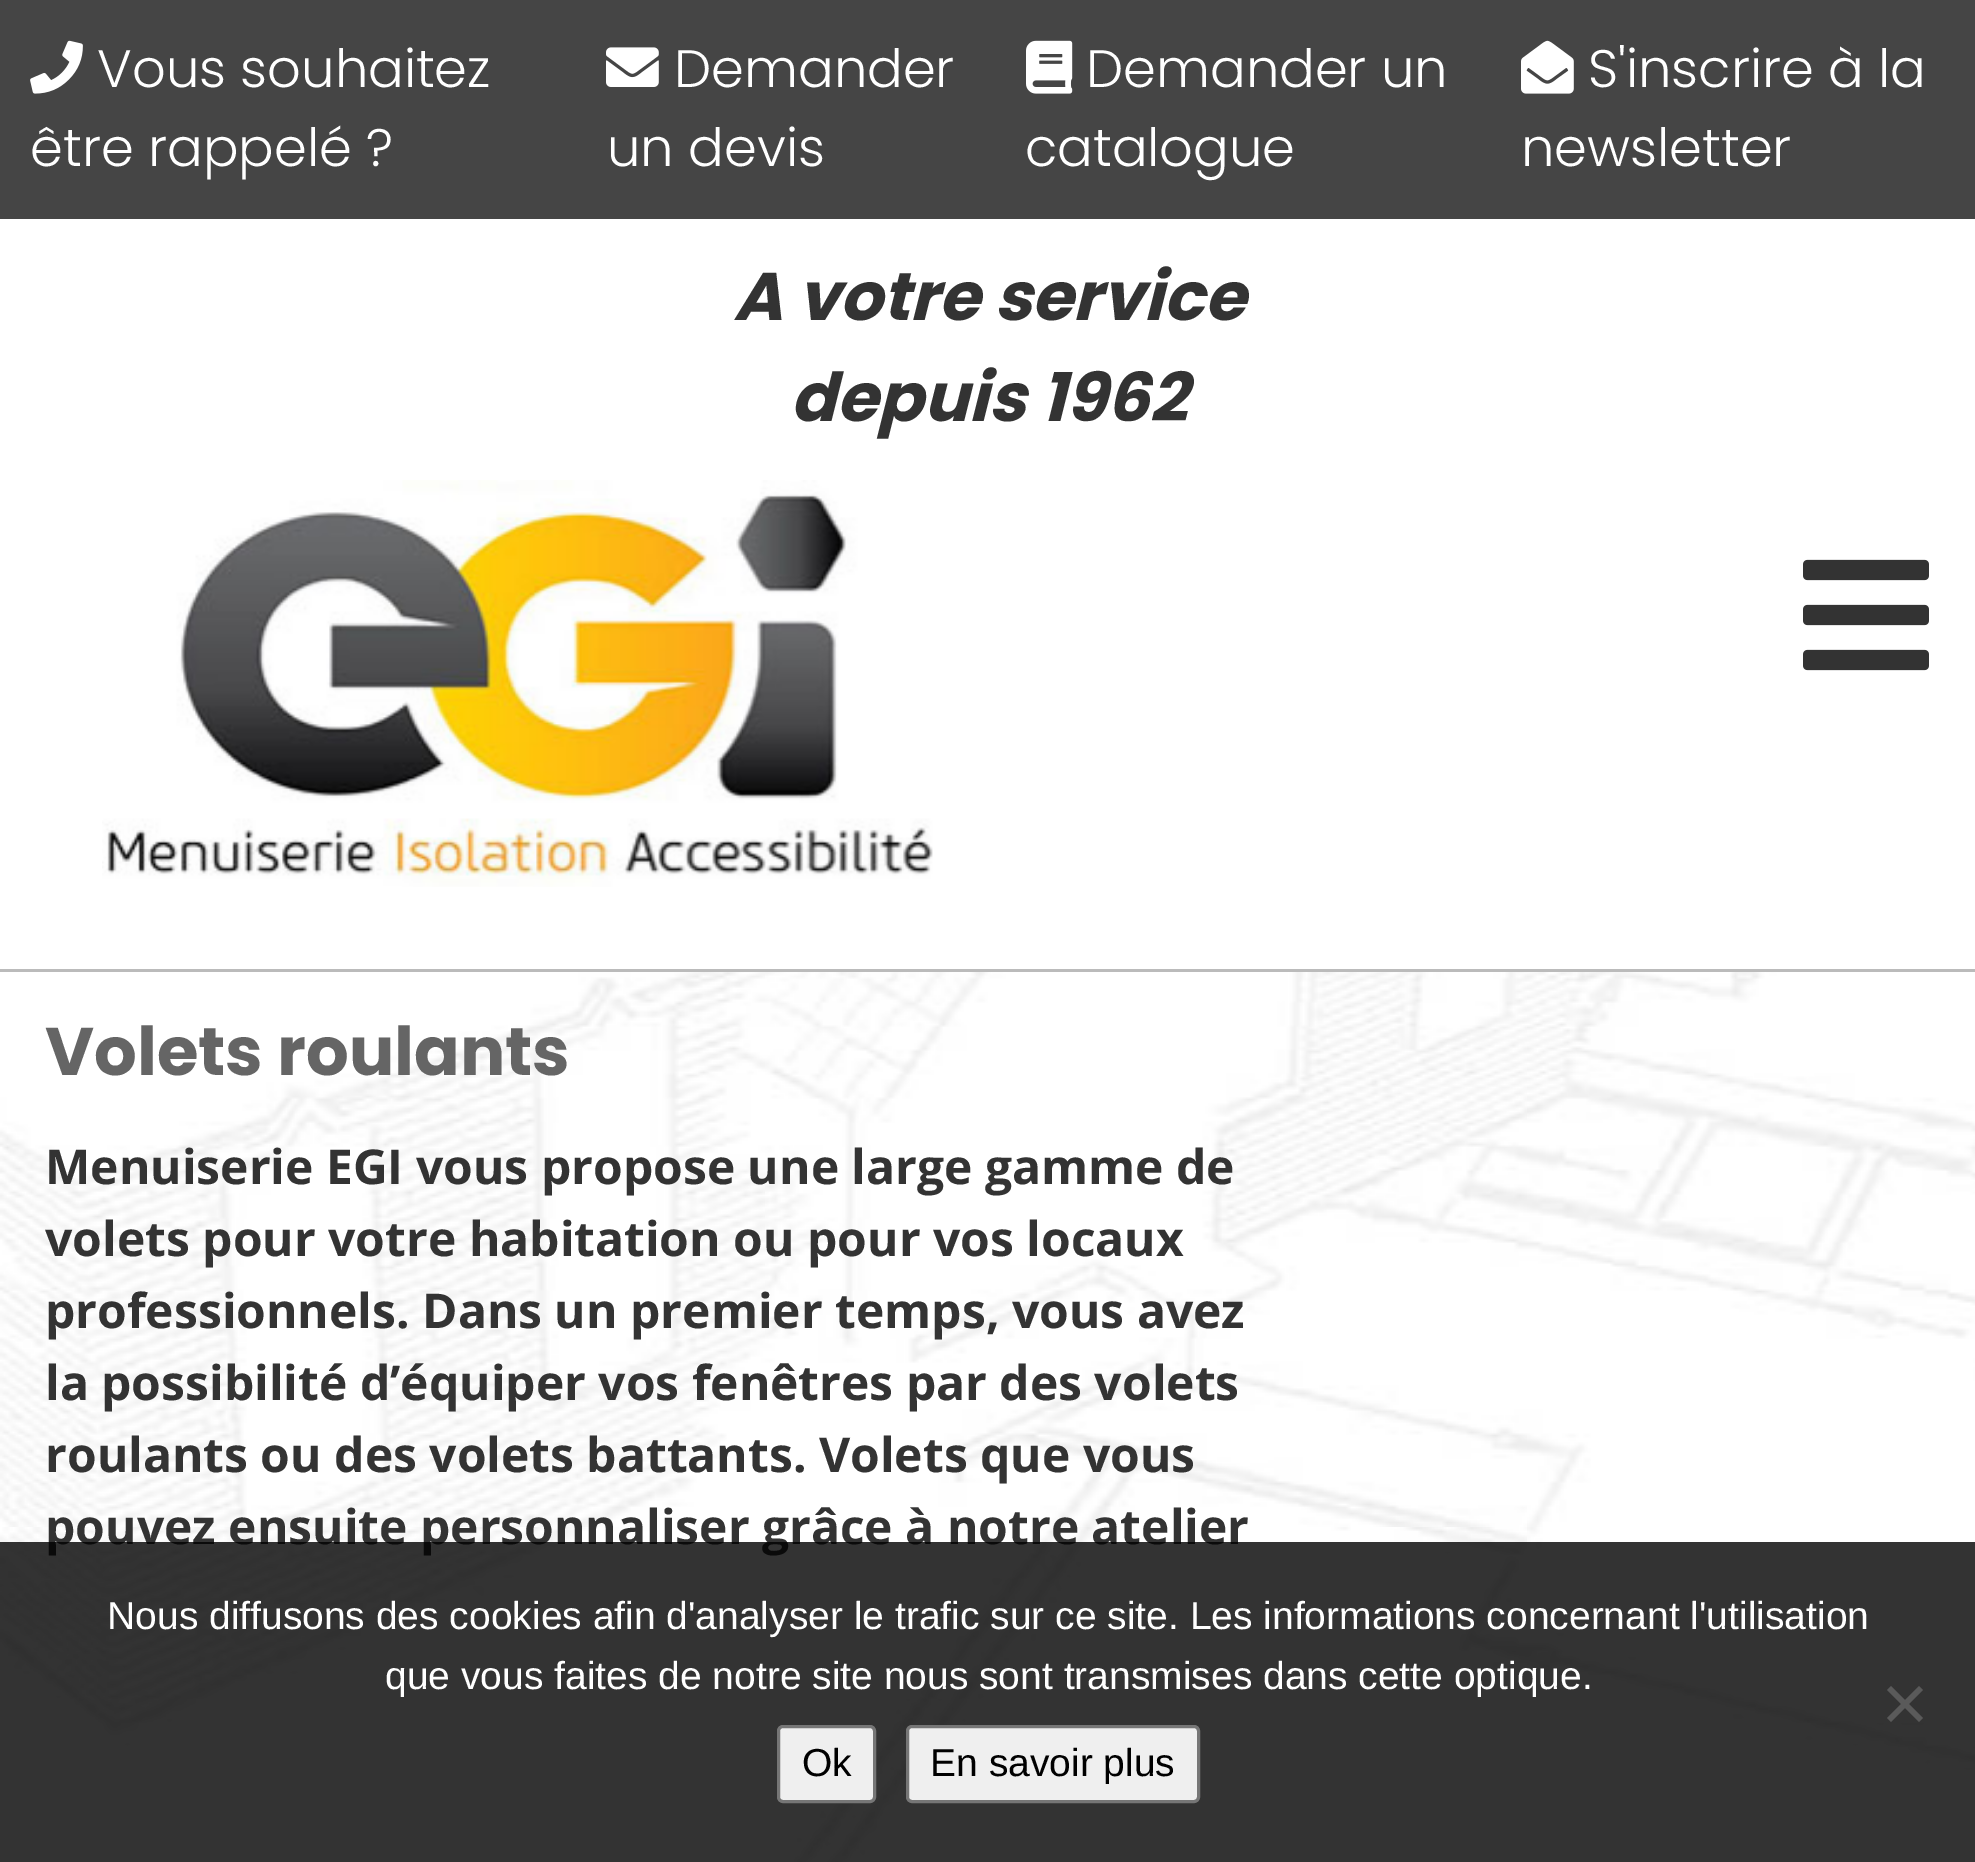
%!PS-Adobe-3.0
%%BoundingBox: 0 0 1975 1862
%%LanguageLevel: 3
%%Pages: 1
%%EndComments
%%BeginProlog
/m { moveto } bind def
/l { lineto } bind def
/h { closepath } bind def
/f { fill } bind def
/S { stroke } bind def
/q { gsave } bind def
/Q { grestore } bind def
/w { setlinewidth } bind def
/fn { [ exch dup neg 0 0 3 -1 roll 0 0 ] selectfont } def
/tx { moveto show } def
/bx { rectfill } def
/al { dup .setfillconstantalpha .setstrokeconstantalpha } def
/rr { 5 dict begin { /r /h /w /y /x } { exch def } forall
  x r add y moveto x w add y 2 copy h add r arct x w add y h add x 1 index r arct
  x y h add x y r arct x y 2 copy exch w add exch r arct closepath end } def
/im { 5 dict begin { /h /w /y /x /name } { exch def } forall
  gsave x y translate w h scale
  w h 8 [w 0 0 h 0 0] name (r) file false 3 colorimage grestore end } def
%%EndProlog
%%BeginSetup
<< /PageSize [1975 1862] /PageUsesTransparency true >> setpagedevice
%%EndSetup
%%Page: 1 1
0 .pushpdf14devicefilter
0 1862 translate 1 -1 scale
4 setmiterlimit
1 setgray
0 0 1975 1862 bx
(image0.raw) 0 972 1975 890 im
0.271 setgray
0 0 1975 219 bx
(image1.raw) 30 40 53 54 im
/Poppins-Light 52.75 fn
1 setgray
(Vous souhaitez) 97 87 tx
(être rappelé ?) 30 166 tx
(image2.raw) 606 47 53 40 im
(Demander) 674 87 tx
(un devis) 607 166 tx
(image3.raw) 1026 40 47 54 im
(Demander un) 1086 87 tx
(catalogue) 1025 166 tx
(image4.raw) 1521 40 53 54 im
(S'inscrire à la) 1588 87 tx
(newsletter) 1521 166 tx
0.733 setgray
0 969 1975 3 bx
/Poppins-BoldItalic 67.25 fn
0.2 setgray
(A votre service) 733 320 tx
(depuis 1962) 790 421 tx
(image5.raw) 102 480 831 407 im
(image6.raw) 1803 559 126 112 im
/Poppins-Bold 67.25 fn
0.396 setgray
(Volets roulants) 45 1075 tx
/OpenSans-Bold 48 fn
0.2 setgray
(Menuiserie EGI vous propose une large gamme de) 45 1184 tx
(volets pour votre habitation ou pour vos locaux) 45 1256 tx
(professionnels. Dans un premier temps, vous avez) 45 1328 tx
(la possibilité d’équiper vos fenêtres par des volets) 45 1400 tx
(roulants ou des volets battants. Volets que vous) 45 1472 tx
(pouvez ensuite personnaliser grâce à notre atelier) 45 1544 tx
0.8 al
0 setgray
0 1542 1975 320 bx
/LiberationSans-Regular 39 fn
1 al
1 setgray
(Nous diffusons des cookies afin d'analyser le trafic sur ce site. Les informations concernant l'utilisation) 107 1629 tx
(que vous faites de notre site nous sont transmises dans cette optique.) 385 1689 tx
0.353 setgray
1919 1686 m 1923 1690 l 1891 1722 l 1887 1718 l h f
1887 1690 m 1891 1686 l 1923 1718 l 1919 1722 l h f
0.937 setgray
778.5 1726.5 96 75 4.5 rr q f Q
0.463 setgray
3 w
S
0 setgray
(Ok) 802 1776 tx
0.937 setgray
907.5 1726.5 291 75 4.5 rr q f Q
0.463 setgray
S
0 setgray
(En savoir plus) 930 1776 tx
.poppdf14devicefilter showpage
%%EOF
